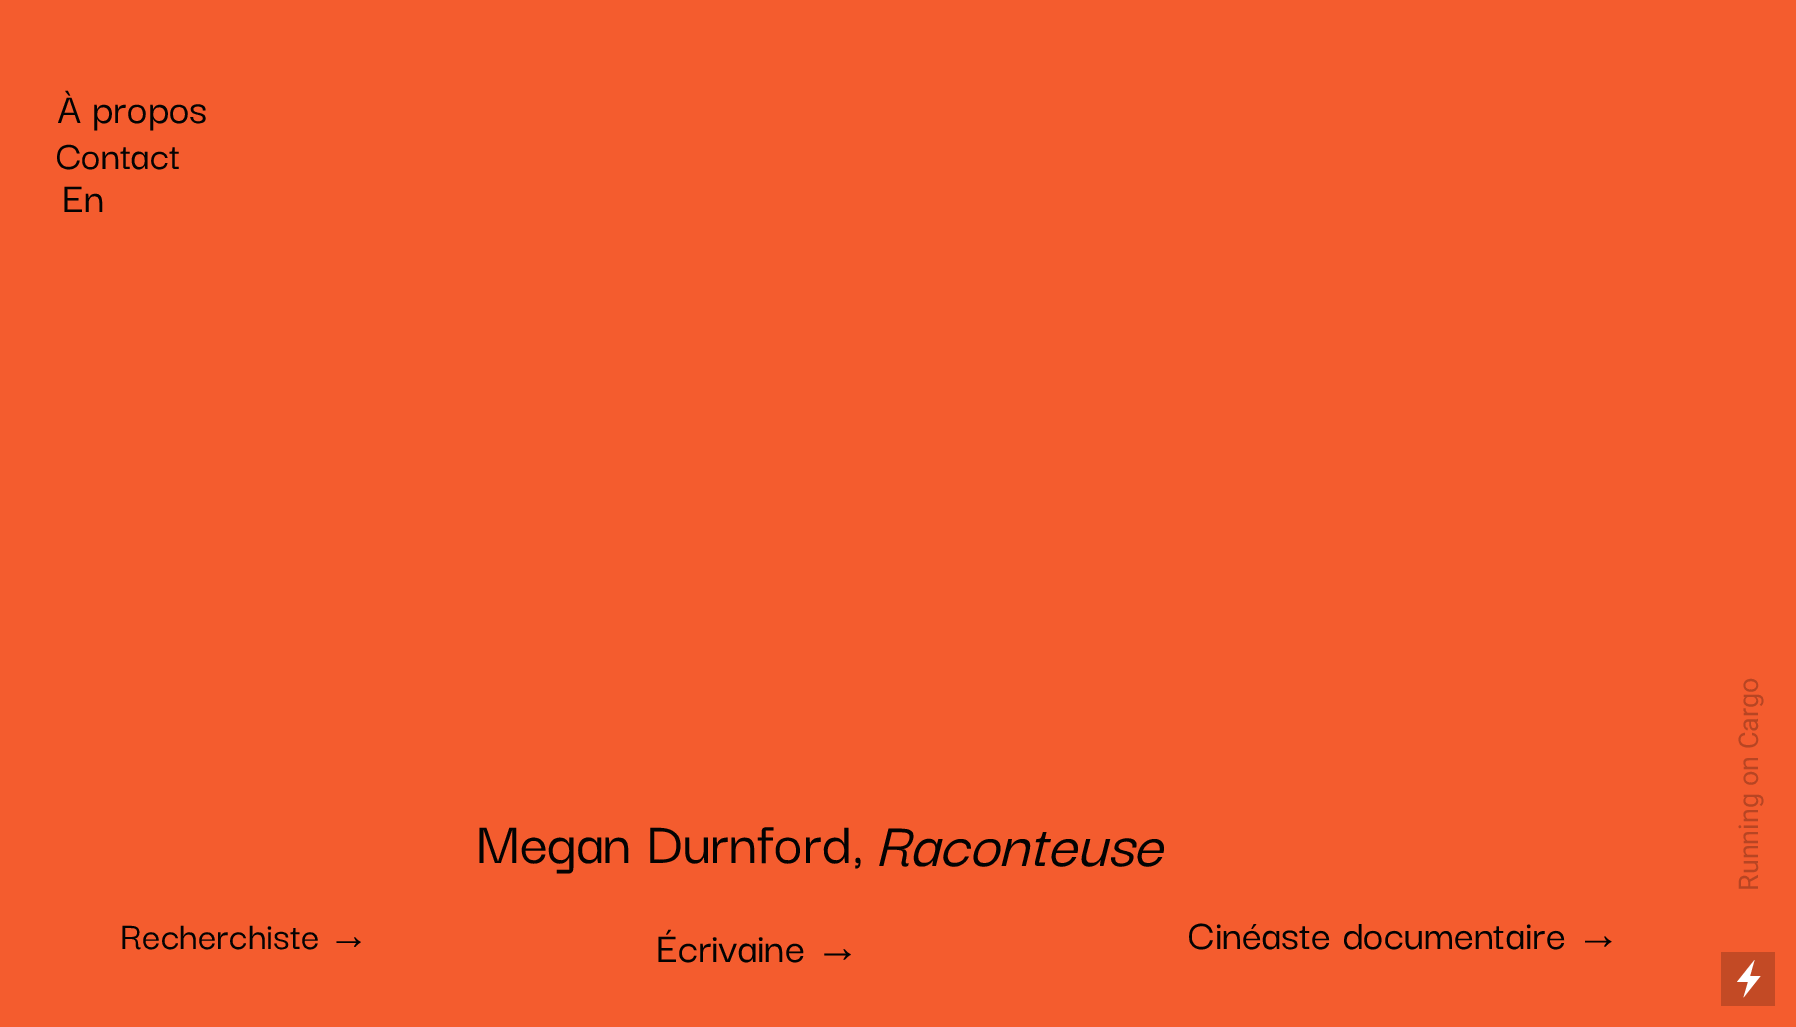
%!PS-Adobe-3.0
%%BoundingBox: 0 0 1796 1027
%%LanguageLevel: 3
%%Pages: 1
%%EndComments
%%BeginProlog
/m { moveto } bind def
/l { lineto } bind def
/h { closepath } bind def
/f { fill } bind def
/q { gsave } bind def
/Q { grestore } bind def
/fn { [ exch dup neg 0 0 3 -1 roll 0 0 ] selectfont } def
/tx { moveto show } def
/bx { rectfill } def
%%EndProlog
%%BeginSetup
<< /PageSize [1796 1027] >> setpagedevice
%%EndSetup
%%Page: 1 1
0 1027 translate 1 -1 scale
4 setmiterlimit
0.957 0.361 0.18 setrgbcolor
0 0 1796 1027 bx
/DarkerGrotesque-Light 45 fn
0.012 setgray
(À propos) 57 123 tx
/DarkerGrotesque-Light 42.5 fn
(Contact) 56 169 tx
/DarkerGrotesque-Light 45 fn
(En) 62 212 tx
/DarkerGrotesque-Light 62.5 fn
(Megan Durnford,) 476 863 tx
/DarkerGrotesque-LightItalic 66.5 fn
(Raconteuse) 875 866 tx
/DarkerGrotesque-Light 41.25 fn
(Recherchiste) 120 949 tx
/LiberationSerif-Regular 41.25 fn
(→) 328 949 tx
/DarkerGrotesque-Light 45 fn
(Écrivaine) 656 962 tx
/DarkerGrotesque-Light 44.5 fn
(Cinéaste documentaire) 1188 949 tx
/LiberationSerif-Regular 44.5 fn
(→) 1576 949 tx
/LiberationSerif-Regular 45 fn
(→) 815 962 tx
/Roboto-Regular 27 fn
0.718 0.271 0.137 setrgbcolor
q 1758 891 translate -90 rotate 0 0 m (Running on Cargo) show Q
0.765 0.29 0.145 setrgbcolor
1721 952 54 54 bx
1 setgray
1760.5 976 m 1750 976 l 1754.5 960 l 1737 982 l 1748 982 l 1743.5 997.5 l h f
showpage
%%EOF
